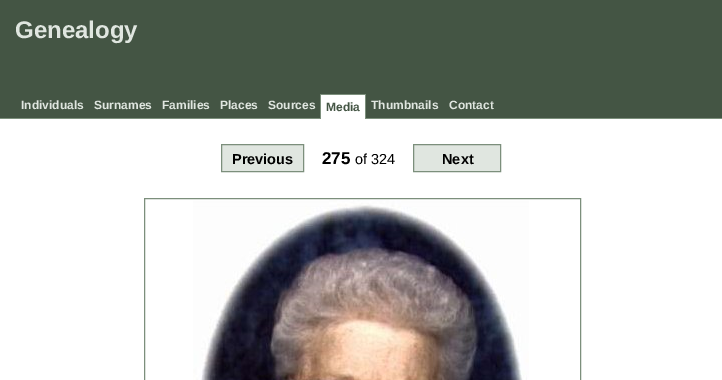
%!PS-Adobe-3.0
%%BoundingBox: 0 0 722 380
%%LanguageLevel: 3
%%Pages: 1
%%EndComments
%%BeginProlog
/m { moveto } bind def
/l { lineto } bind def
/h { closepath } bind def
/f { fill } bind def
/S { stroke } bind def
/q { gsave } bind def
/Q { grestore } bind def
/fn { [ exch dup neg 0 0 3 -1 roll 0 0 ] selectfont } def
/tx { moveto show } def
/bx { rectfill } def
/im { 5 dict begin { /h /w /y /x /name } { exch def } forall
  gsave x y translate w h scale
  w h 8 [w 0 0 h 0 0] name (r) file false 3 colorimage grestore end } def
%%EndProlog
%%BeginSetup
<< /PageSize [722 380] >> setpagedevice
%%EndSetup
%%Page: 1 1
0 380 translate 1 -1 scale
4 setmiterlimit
0.267 0.333 0.267 setrgbcolor
0 0 722 380 bx
/LiberationSans-Bold 24 fn
0.878 0.902 0.878 setrgbcolor
(Genealogy) 15 38 tx
/LiberationSans-Bold 12 fn
(Individuals) 21 109 tx
(Surnames) 94 109 tx
(Families) 162 109 tx
(Places) 220 109 tx
(Sources) 268 109 tx
0.486 0.561 0.486 setrgbcolor
0 118 722 1 bx
1 setgray
321 95 44 24 bx
0.486 0.561 0.486 setrgbcolor
320 94 46 1 bx
365 94 1 25 bx
320 94 1 25 bx
0.267 0.333 0.267 setrgbcolor
(Media) 326 111 tx
0.878 0.902 0.878 setrgbcolor
(Thumbnails) 371 109 tx
(Contact) 449 109 tx
1 setgray
0 119 722 261 bx
0.878 0.902 0.878 setrgbcolor
221.5 144.5 m 303.5 144.5 l 303.5 171.5 l 221.5 171.5 l h q f Q
0.486 0.561 0.486 setrgbcolor
S
/LiberationSans-Bold 14.5 fn
0 setgray
(Previous) 232 164 tx
/LiberationSans-Bold 17 fn
(275) 322 164 tx
/LiberationSans-Regular 14.5 fn
(of 324) 355 164 tx
0.878 0.902 0.878 setrgbcolor
413.5 144.5 m 500.5 144.5 l 500.5 171.5 l 413.5 171.5 l h q f Q
0.486 0.561 0.486 setrgbcolor
S
/LiberationSans-Bold 14.5 fn
0 setgray
(Next) 442 164 tx
0.486 0.561 0.486 setrgbcolor
144.5 198.5 436 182 rectstroke
(image0.raw) 193 200 336 180 im
showpage
%%EOF
